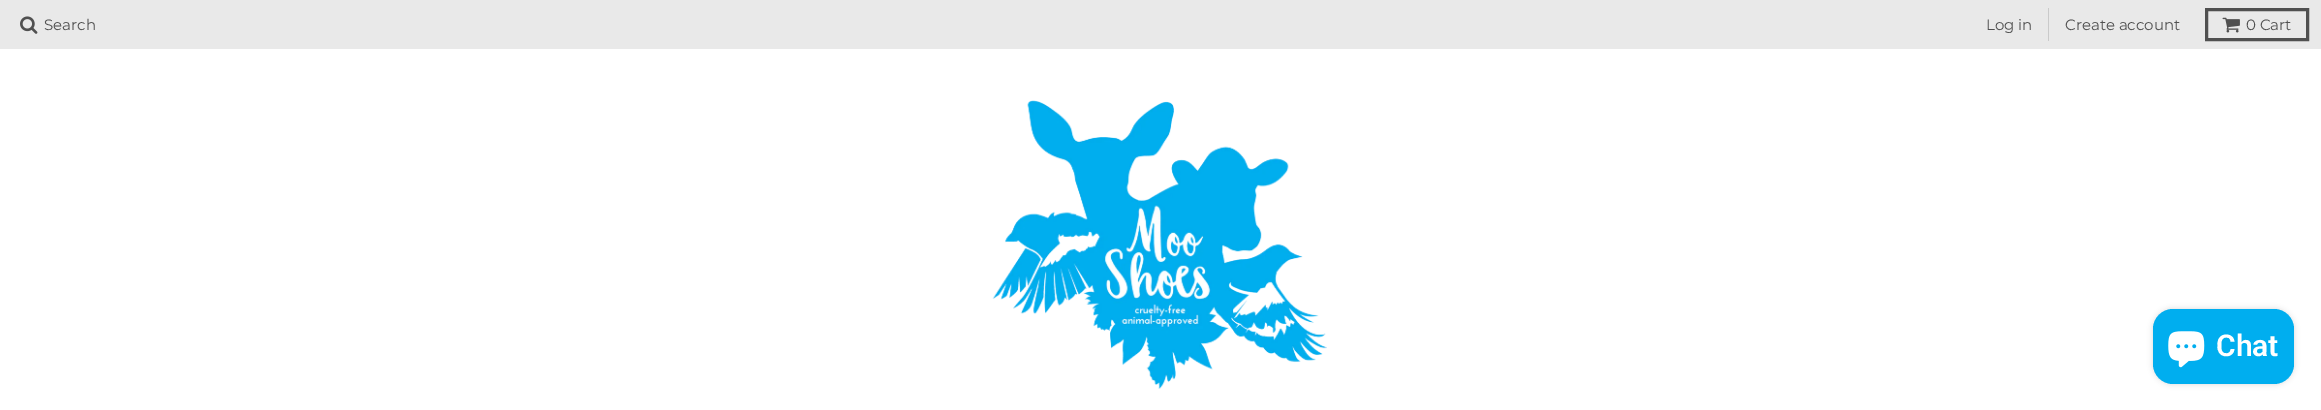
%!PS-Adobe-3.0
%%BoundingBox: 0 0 2321 410
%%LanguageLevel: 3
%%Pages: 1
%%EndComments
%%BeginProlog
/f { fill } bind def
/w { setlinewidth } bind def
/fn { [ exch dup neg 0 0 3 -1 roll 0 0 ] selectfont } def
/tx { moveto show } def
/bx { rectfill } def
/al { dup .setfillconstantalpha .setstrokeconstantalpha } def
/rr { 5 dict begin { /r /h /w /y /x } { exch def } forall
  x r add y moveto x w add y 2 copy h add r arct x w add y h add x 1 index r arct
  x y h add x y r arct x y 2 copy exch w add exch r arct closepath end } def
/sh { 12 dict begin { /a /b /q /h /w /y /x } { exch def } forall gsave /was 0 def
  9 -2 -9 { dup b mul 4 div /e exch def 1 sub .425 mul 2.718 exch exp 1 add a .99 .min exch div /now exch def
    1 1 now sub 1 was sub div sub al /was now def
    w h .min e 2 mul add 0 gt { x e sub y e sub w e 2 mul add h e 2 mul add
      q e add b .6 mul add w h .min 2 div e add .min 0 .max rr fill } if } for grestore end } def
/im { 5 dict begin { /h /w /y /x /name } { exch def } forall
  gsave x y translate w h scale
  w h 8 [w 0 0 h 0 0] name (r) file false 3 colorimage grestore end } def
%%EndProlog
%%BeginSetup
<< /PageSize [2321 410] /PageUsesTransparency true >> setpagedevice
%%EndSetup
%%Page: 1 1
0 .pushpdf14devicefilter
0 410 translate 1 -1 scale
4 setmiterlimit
1 setgray
0 0 2321 410 bx
0.914 setgray
0 0 2321 49 bx
(image0.raw) 20 16 18 18 im
/Montserrat-Regular 15 fn
0.314 setgray
(Search) 44 30 tx
0.792 setgray
2048 8 1 33 bx
0.314 setgray
(Log in) 1986 30 tx
(Create account) 2065 30 tx
3 w
2206.5 9.5 101 30 rectstroke
(image1.raw) 2222 17 18 16 im
(0 Cart) 2246 30 tx
(image2.raw) 992 100 335 289 im
0 setgray
2153 309 141 75 20 3 0.15 sh
0 0.682 0.937 setrgbcolor
2153 309 141 75 20 rr f
(image3.raw) 2168 331 37 37 im
/Roboto-SemiBold 30 fn
1 setgray
(Chat) 2216 356 tx
.poppdf14devicefilter showpage
%%EOF
